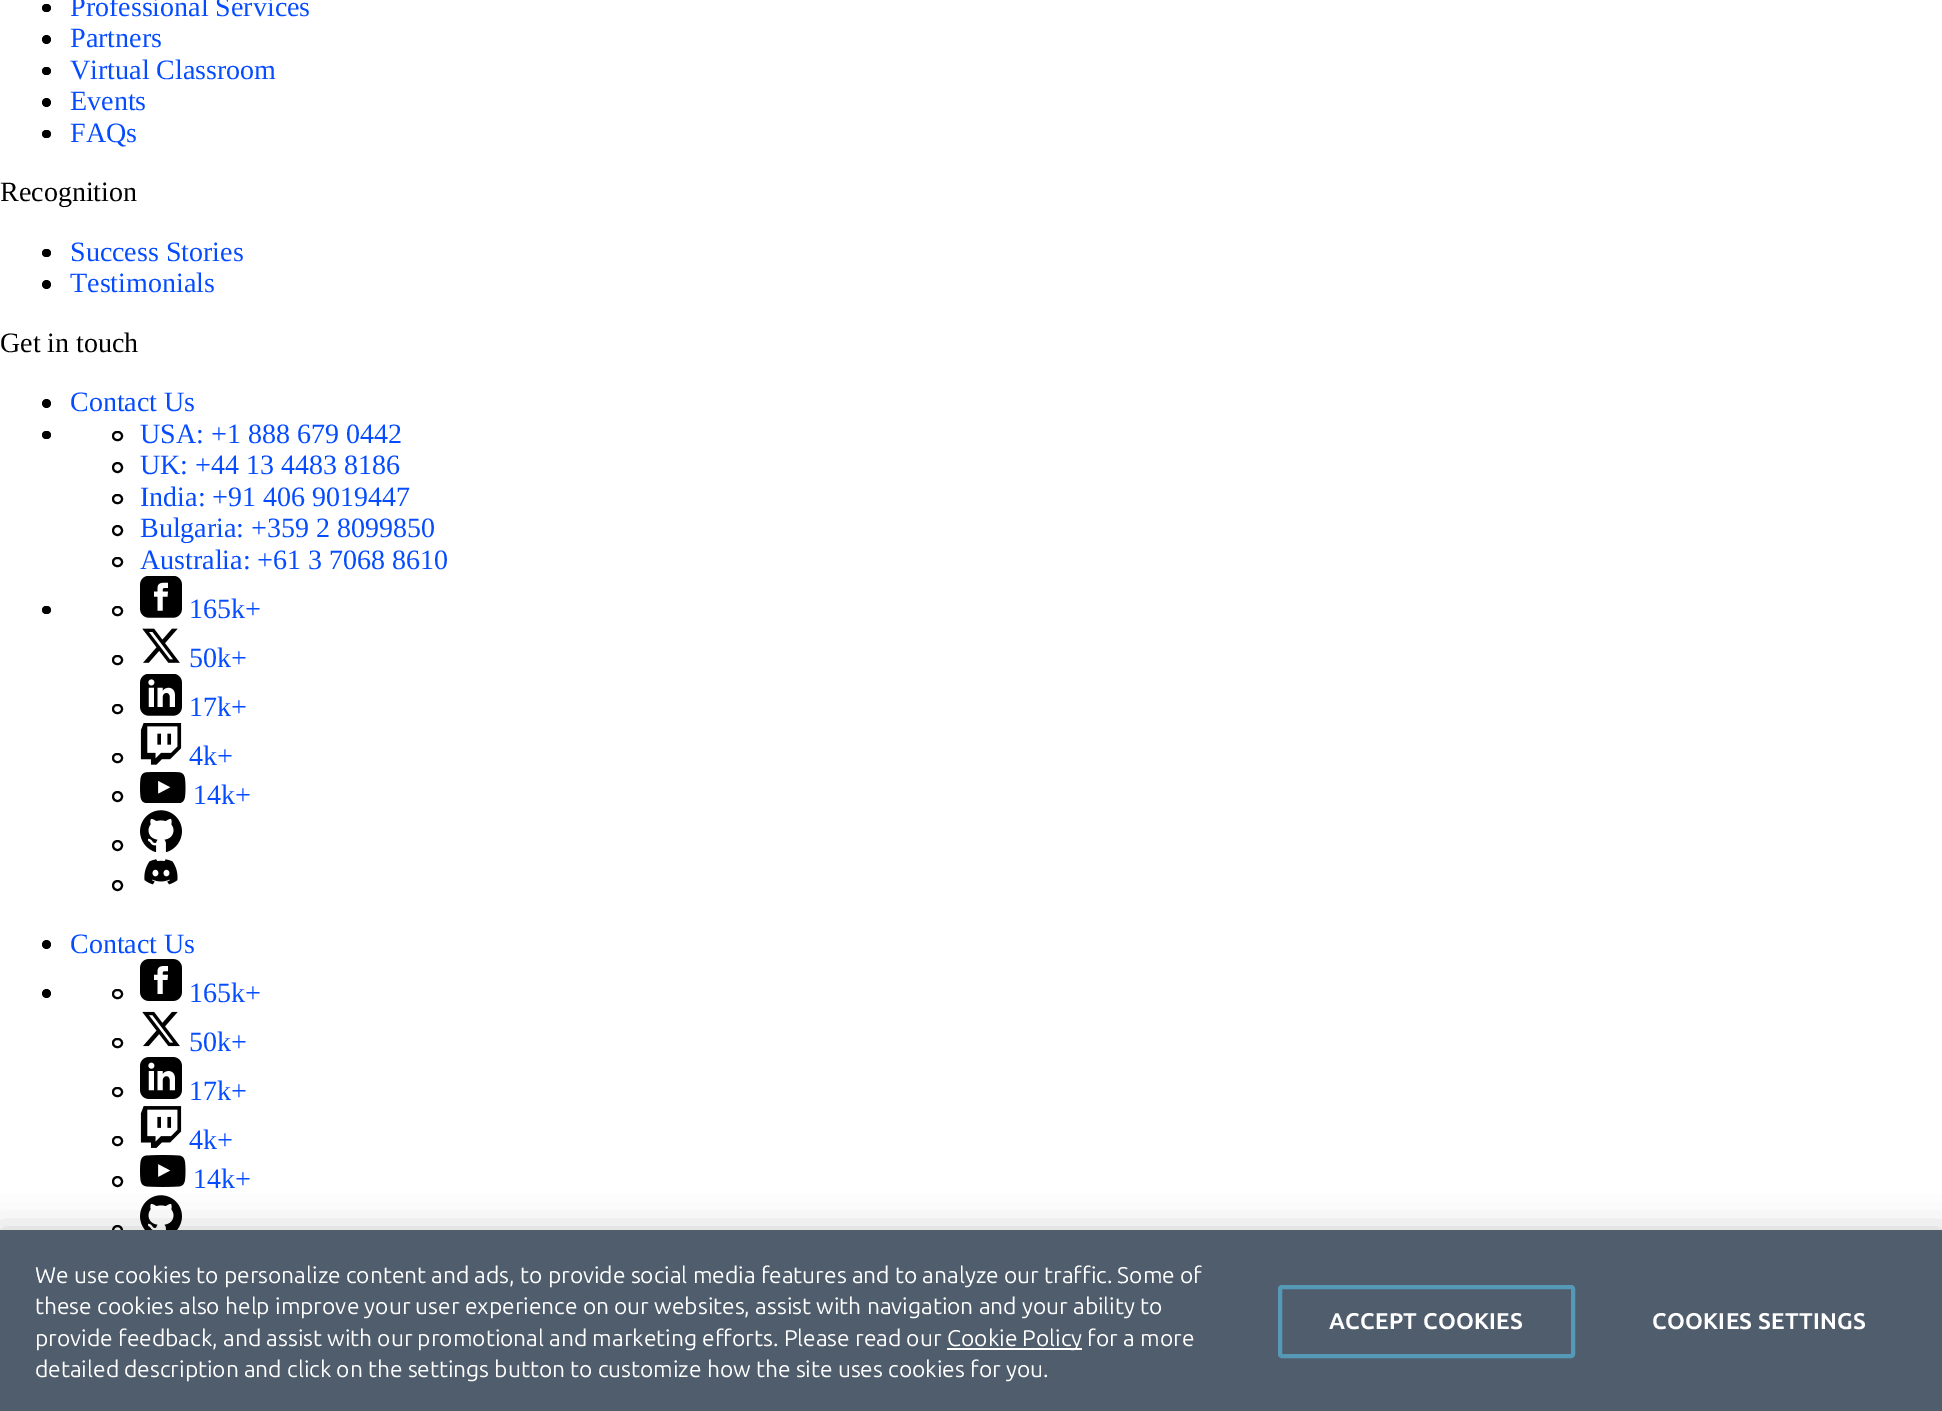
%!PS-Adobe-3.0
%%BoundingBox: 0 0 1942 1411
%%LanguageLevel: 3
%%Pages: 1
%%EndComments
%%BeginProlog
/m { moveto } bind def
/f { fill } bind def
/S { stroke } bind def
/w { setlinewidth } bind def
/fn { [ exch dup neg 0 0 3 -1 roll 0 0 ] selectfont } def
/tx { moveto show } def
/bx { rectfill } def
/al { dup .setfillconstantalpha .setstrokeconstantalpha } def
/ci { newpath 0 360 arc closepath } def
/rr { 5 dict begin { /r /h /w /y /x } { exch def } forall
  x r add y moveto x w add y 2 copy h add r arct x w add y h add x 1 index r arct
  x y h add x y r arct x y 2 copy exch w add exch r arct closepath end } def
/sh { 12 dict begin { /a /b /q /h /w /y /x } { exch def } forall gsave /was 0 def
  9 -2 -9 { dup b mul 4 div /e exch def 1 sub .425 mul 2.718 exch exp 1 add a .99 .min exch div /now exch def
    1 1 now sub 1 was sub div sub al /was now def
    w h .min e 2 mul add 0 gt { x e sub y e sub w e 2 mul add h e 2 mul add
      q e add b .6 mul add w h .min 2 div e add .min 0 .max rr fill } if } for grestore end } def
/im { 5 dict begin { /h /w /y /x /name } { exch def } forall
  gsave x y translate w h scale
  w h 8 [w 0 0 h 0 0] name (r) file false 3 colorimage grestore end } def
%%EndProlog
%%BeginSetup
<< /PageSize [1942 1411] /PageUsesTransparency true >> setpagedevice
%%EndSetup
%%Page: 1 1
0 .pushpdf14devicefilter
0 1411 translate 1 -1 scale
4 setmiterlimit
1 setgray
0 0 1942 1411 bx
0 setgray
42 4 9 8 4 rr f
/LiberationSerif-Regular 28 fn
0.02 0.294 1 setrgbcolor
(Professional Services) 70 16 tx
0 setgray
46.5 39.5 4.5 ci f
0.02 0.294 1 setrgbcolor
(Partners) 70 47 tx
0 setgray
42 67 9 8 4 rr f
0.02 0.294 1 setrgbcolor
(Virtual Classroom) 70 79 tx
0 setgray
46.5 102.5 4.5 ci f
0.02 0.294 1 setrgbcolor
(Events) 70 110 tx
0 setgray
42 130 9 8 4 rr f
0.02 0.294 1 setrgbcolor
(FAQs) 70 142 tx
0 setgray
(Recognition) 0 201 tx
42 249 9 8 4 rr f
0.02 0.294 1 setrgbcolor
(Success Stories) 70 261 tx
0 setgray
46.5 284.5 4.5 ci f
0.02 0.294 1 setrgbcolor
(Testimonials) 70 292 tx
0 setgray
(Get in touch) 0 352 tx
46.5 403.5 4.5 ci f
0.02 0.294 1 setrgbcolor
(Contact Us) 70 411 tx
0 setgray
42 431 9 8 4 rr f
2 w
113 432 9 8 4 rr S
0.02 0.294 1 setrgbcolor
(USA: +1 888 679 0442) 140 443 tx
0 setgray
117.5 467.5 4.5 ci S
0.02 0.294 1 setrgbcolor
(UK: +44 13 4483 8186) 140 474 tx
0 setgray
113 495 9 8 4 rr S
0.02 0.294 1 setrgbcolor
(India: +91 406 9019447) 140 506 tx
0 setgray
117.5 530.5 4.5 ci S
0.02 0.294 1 setrgbcolor
(Bulgaria: +359 2 8099850) 140 537 tx
0 setgray
113 558 9 8 4 rr S
0.02 0.294 1 setrgbcolor
(Australia: +61 3 7068 8610) 140 569 tx
0 setgray
42 606 9 8 4 rr f
113 607 9 8 4 rr S
(image0.raw) 140 576 42 42 im
0.02 0.294 1 setrgbcolor
(165k+) 189 618 tx
0 setgray
113 656 9 8 4 rr S
(image1.raw) 142 628 38 35 im
0.02 0.294 1 setrgbcolor
(50k+) 189 667 tx
0 setgray
113 705 9 8 4 rr S
(image2.raw) 140 674 42 42 im
0.02 0.294 1 setrgbcolor
(17k+) 189 716 tx
0 setgray
113 754 9 8 4 rr S
(image3.raw) 140 723 42 42 im
0.02 0.294 1 setrgbcolor
(4k+) 189 765 tx
0 setgray
117.5 796.5 4.5 ci S
(image4.raw) 140 772 46 31 im
0.02 0.294 1 setrgbcolor
(14k+) 193 804 tx
0 setgray
117.5 845.5 4.5 ci S
(image5.raw) 140 810 42 42 im
117.5 885.5 4.5 ci S
(image6.raw) 144 859 34 26 im
46.5 944.5 4.5 ci f
0.02 0.294 1 setrgbcolor
(Contact Us) 70 953 tx
0 setgray
46.5 993.5 4.5 ci f
113 990 9 8 4 rr S
(image7.raw) 140 959 42 42 im
0.02 0.294 1 setrgbcolor
(165k+) 189 1002 tx
0 setgray
113 1039 9 8 4 rr S
(image8.raw) 142 1011 38 36 im
0.02 0.294 1 setrgbcolor
(50k+) 189 1051 tx
0 setgray
113 1088 9 8 4 rr S
(image9.raw) 140 1057 42 42 im
0.02 0.294 1 setrgbcolor
(17k+) 189 1100 tx
0 setgray
113 1137 9 8 4 rr S
(image10.raw) 140 1106 42 42 im
0.02 0.294 1 setrgbcolor
(4k+) 189 1149 tx
0 setgray
117.5 1181.5 4.5 ci S
(image11.raw) 140 1155 46 32 im
0.02 0.294 1 setrgbcolor
(14k+) 193 1188 tx
0 setgray
117.5 1230.5 4.5 ci S
(image12.raw) 140 1195 42 35 im
0 1230 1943 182 0 16 0.2 sh
0.31 0.365 0.424 setrgbcolor
0 1230 1942 181 bx
/Ubuntu-Regular 22.75 fn
1 setgray
(We use cookies to personalize content and ads, to provide social media features and to analyze our traffic. Some of) 35 1283 tx
(these cookies also help improve your user experience on our websites, assist with navigation and your ability to) 35 1314 tx
(provide feedback, and assist with our promotional and marketing efforts. Please read our) 35 1346 tx
947 1348 135 2 bx
(Cookie Policy for a more) 947 1346 tx
(detailed description and click on the settings button to customize how the site uses cookies for you.) 35 1377 tx
0.337 0.6 0.714 setrgbcolor
4 w
1280 1287 293 69 2 rr S
/Ubuntu-Bold 22.75 fn
1 setgray
1329 1329 m 0.25 0 (ACCEPT COOKIES) ashow
1652 1329 m 0.25 0 (COOKIES SETTINGS) ashow
.poppdf14devicefilter showpage
%%EOF
